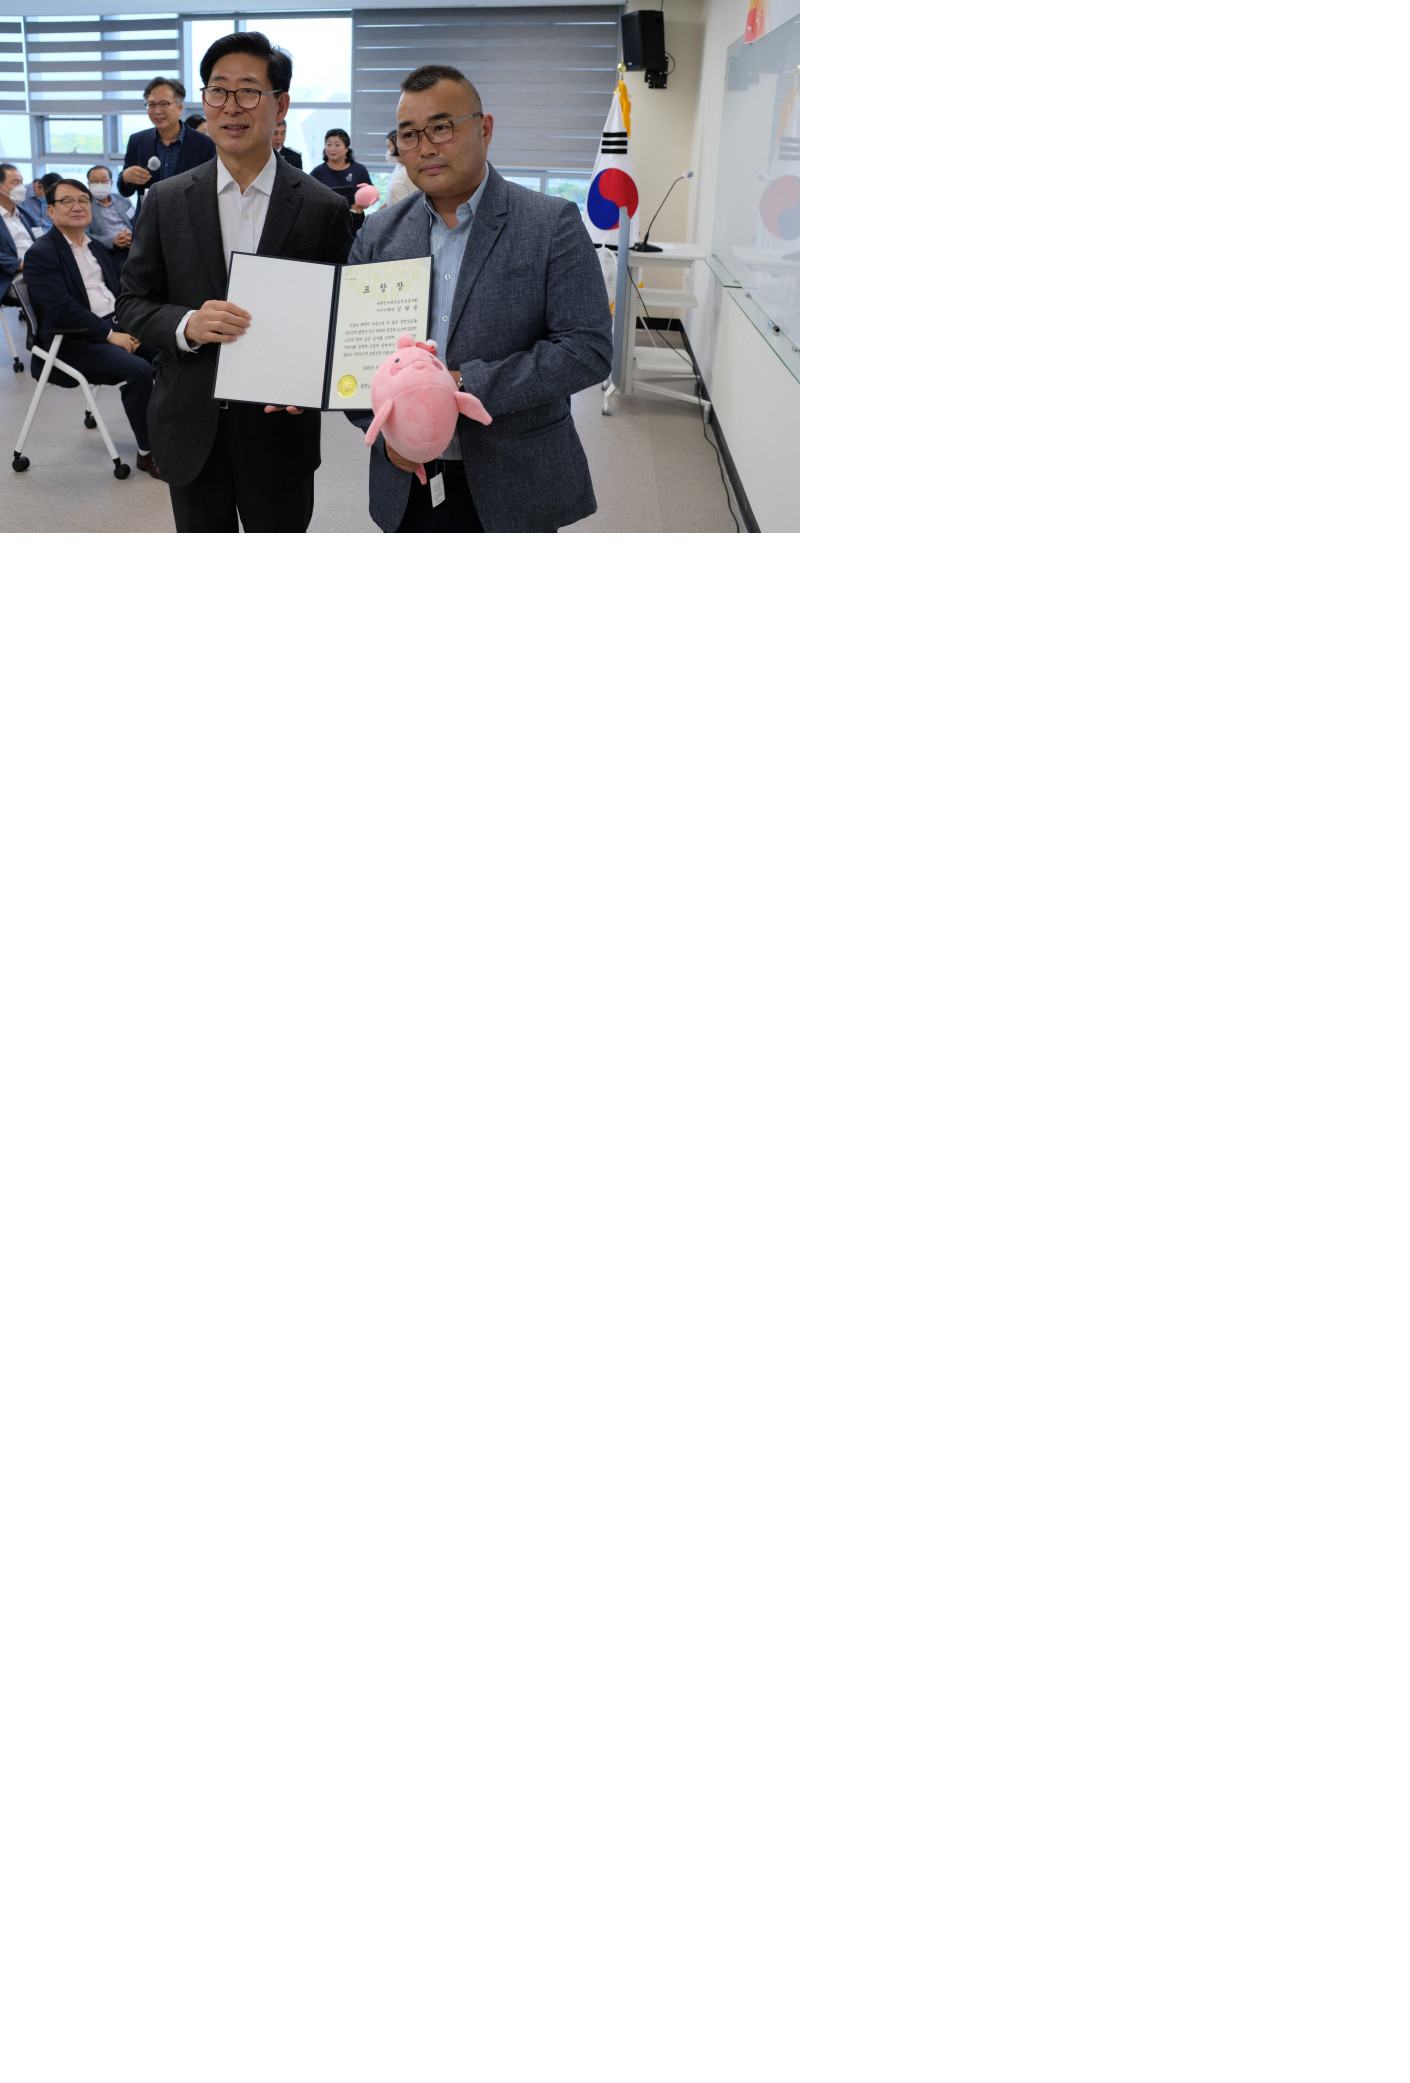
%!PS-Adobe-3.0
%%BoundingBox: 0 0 1410 2083
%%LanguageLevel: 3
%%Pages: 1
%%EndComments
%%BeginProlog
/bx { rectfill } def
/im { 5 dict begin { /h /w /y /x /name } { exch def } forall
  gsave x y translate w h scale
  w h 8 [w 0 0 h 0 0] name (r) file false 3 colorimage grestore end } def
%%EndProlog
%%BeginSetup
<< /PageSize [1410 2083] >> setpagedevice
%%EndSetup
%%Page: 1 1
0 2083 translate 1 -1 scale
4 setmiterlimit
1 setgray
0 0 1410 2083 bx
(image0.raw) 0 0 800 533 im
showpage
%%EOF
